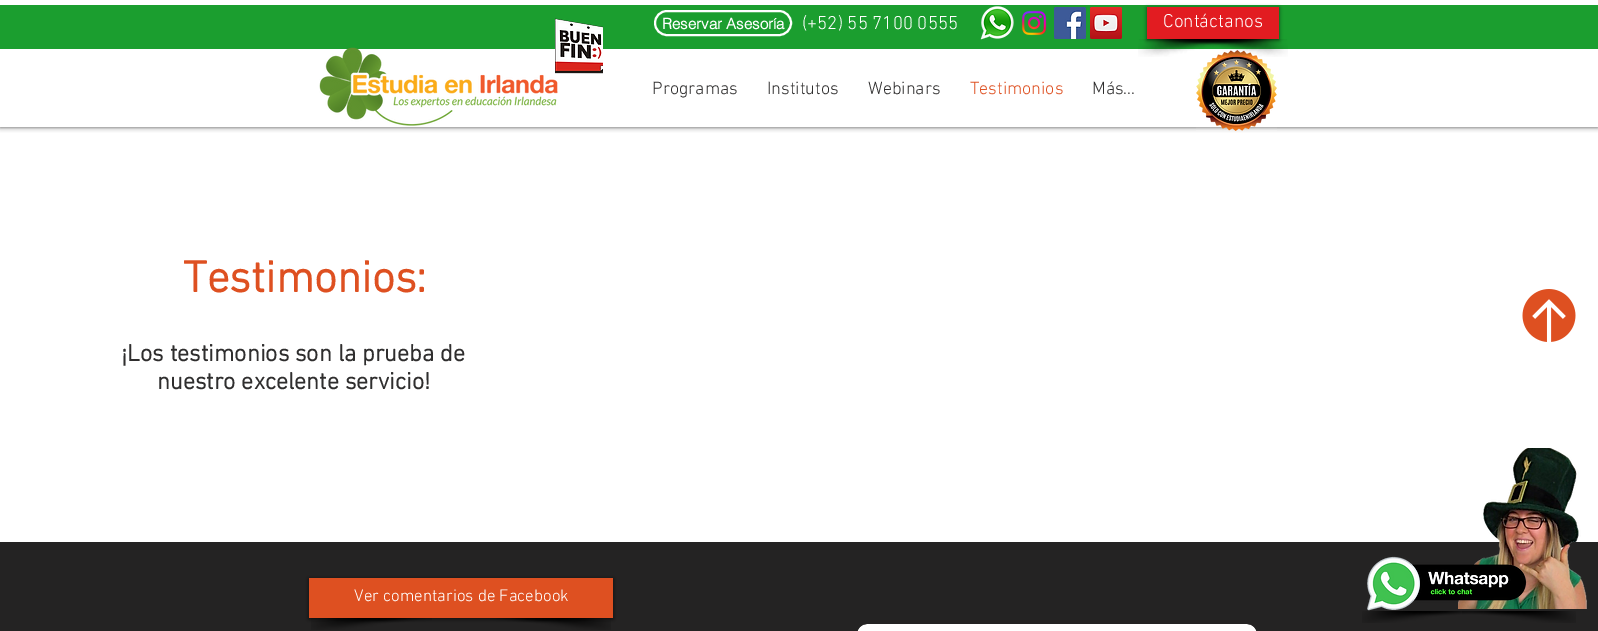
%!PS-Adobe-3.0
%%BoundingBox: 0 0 1598 631
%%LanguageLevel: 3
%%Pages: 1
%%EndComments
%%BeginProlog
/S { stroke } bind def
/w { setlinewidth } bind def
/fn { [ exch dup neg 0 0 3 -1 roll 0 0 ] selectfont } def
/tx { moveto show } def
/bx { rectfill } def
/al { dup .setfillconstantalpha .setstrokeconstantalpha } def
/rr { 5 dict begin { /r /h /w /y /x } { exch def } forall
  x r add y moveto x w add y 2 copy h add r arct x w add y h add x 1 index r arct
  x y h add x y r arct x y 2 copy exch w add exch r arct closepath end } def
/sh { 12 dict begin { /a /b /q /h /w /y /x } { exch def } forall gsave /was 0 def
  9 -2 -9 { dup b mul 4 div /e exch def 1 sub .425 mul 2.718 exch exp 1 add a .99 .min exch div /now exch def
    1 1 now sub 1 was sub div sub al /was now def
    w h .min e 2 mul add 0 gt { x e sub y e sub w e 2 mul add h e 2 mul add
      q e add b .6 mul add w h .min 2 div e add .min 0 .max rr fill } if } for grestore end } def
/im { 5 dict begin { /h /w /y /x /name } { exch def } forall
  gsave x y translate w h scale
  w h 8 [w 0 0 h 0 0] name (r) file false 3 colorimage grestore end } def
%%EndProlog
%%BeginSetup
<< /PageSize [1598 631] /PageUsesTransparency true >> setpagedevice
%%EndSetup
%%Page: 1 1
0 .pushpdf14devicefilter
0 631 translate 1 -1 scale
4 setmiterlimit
1 setgray
0 0 1598 631 bx
0 setgray
0 0 1598 127 0 2.5 0.7 sh
1 setgray
0 0 1598 127 bx
0.106 0.62 0.184 setrgbcolor
0 5 1598 44 bx
(image0.raw) 319 47 239 79 im
(image1.raw) 555 18 48 56 im
1 setgray
2 w
655 11 136 24 12 rr S
/helvetica-Bold 15 fn
(Reservar Asesoría) 662 29 tx
/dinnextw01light-Light 19 fn
(\(+52\) 55 7100 0555) 802 29 tx
(image2.raw) 980 6 34 34 im
(image3.raw) 1021 10 26 26 im
(image4.raw) 1054 7 32 32 im
(image5.raw) 1090 7 32 32 im
(image6.raw) 1138 39 149 18 im
(image7.raw) 1139 39 149 18 im
0 setgray
1147 8 132 32 0 2 0.6 sh
0.886 0.11 0.129 setrgbcolor
1147 7 132 32 bx
1 setgray
(Contáctanos) 1163 27 tx
/dinnextw01light-Light 18 fn
0.184 0.18 0.18 setrgbcolor
(Programas) 652 94 tx
(Institutos) 767 94 tx
(Webinars) 868 94 tx
0.871 0.314 0.129 setrgbcolor
(Testimonios) 970 94 tx
0.184 0.18 0.18 setrgbcolor
(Más...) 1092 94 tx
(image8.raw) 1196 50 81 81 im
/dinnextw01light-Bold 45 fn
0.871 0.314 0.129 setrgbcolor
(Testimonios:) 183 292 tx
/dinnextw01light-Bold 24 fn
0.184 0.18 0.18 setrgbcolor
(¡Los testimonios son la prueba de) 121 361 tx
(nuestro excelente servicio!) 157 389 tx
0.141 0.137 0.137 setrgbcolor
0 542 1598 89 bx
(image9.raw) 311 618 121 12 im
(image10.raw) 490 618 121 12 im
0 setgray
309 579 304 40 0 2 0.6 sh
0.871 0.314 0.129 setrgbcolor
309 578 304 40 bx
/dinnextw01light-Light 17 fn
1 setgray
(Ver comentarios de Facebook) 354 601 tx
(image11.raw) 857 624 400 7 im
(image12.raw) 1522 289 54 53 im
(image13.raw) 1458 448 129 161 im
(image14.raw) 1367 556 160 55 im
(image9.raw) 1362 611 121 12 im
(image15.raw) 1462 611 114 12 im
.poppdf14devicefilter showpage
%%EOF
